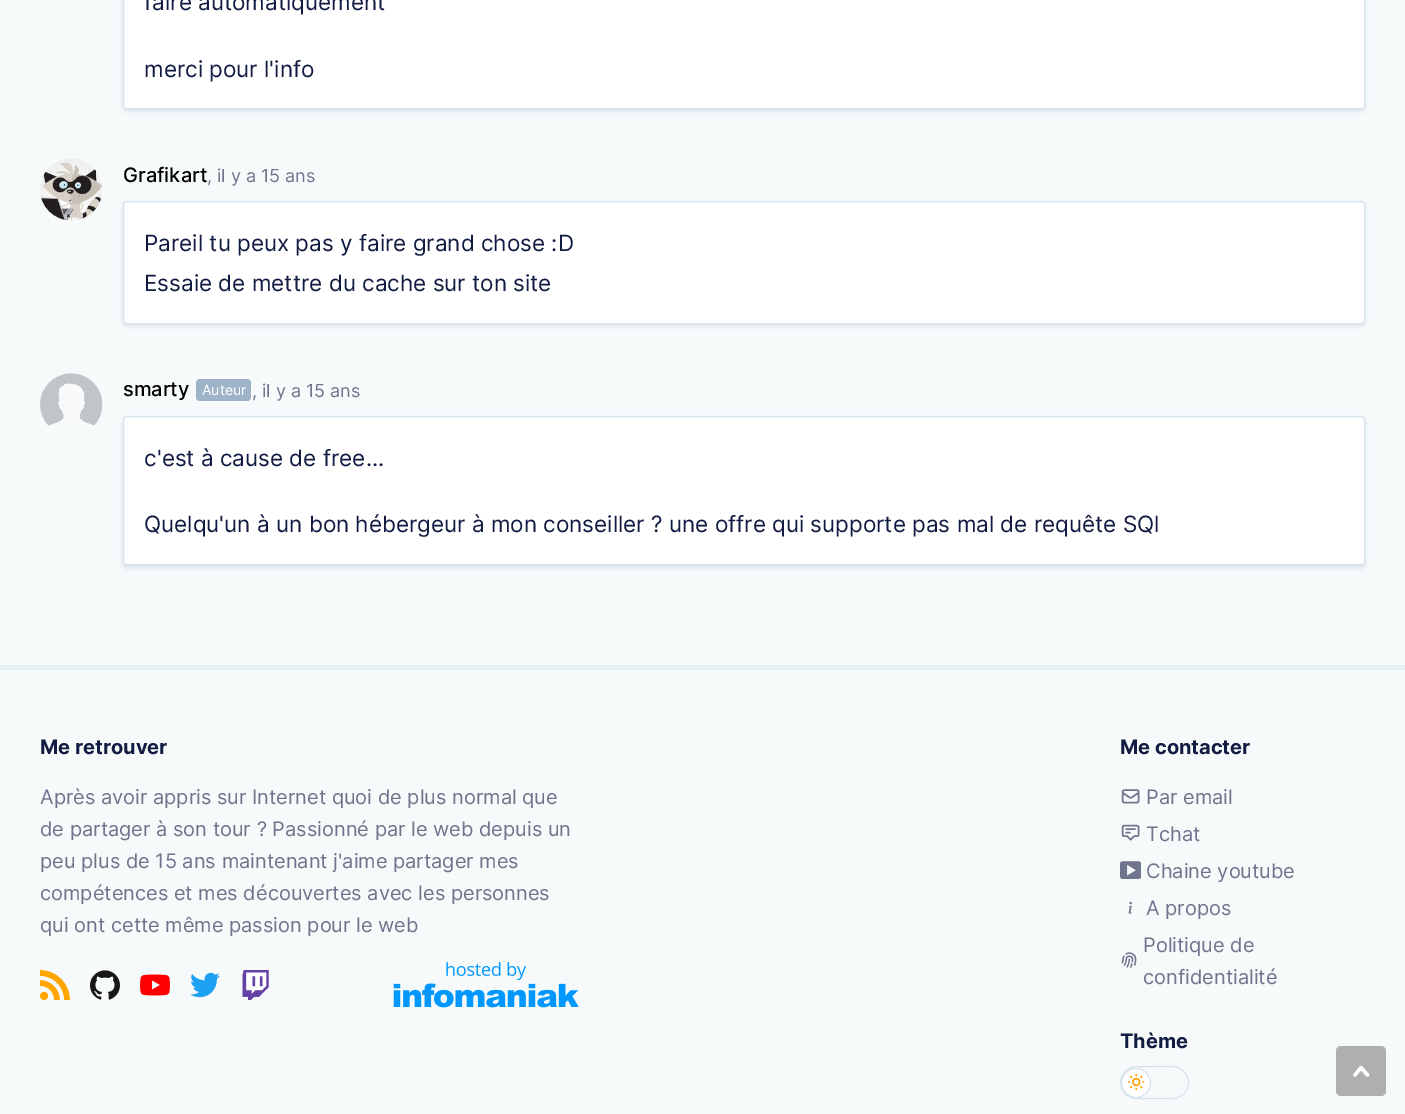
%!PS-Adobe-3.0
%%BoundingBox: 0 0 1405 1114
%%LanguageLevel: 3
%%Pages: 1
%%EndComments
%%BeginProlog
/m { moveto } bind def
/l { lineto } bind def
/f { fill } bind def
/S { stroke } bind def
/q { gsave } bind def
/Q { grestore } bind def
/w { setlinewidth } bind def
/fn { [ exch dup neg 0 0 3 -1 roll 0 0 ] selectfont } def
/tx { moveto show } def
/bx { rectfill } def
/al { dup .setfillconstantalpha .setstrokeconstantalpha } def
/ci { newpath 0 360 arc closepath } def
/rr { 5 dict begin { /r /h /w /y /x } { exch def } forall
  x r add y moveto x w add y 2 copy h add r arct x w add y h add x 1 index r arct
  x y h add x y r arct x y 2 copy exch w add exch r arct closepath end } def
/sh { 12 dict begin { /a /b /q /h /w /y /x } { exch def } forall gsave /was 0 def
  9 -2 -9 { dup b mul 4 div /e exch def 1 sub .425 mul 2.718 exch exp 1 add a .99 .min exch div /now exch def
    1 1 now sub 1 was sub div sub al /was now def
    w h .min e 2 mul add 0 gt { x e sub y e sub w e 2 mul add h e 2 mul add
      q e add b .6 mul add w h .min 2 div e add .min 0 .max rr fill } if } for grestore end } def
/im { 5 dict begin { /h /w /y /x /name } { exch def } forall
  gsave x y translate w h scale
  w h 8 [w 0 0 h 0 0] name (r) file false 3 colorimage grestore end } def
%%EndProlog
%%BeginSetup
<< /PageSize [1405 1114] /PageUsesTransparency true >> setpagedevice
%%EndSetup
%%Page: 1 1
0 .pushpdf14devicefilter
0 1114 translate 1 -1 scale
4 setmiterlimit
0.969 0.98 0.984 setrgbcolor
0 0 1405 1114 bx
0.847 0.882 0.91 setrgbcolor
123 -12 1242 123 4 2.5 1 sh
1 setgray
123.5 -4.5 1241 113 3.5 rr q f Q
0.835 0.89 0.925 setrgbcolor
S
/Inter-Regular 22.5 fn
0.071 0.11 0.259 setrgbcolor
(faire automatiquement) 144 10 tx
(merci pour l'info) 144 77 tx
(image0.raw) 40 158 62 63 im
/Inter-Medium 20 fn
0 setgray
(Grafikart) 123 182 tx
/Inter-Regular 18 fn
0.431 0.459 0.549 setrgbcolor
(,) 207 182 tx
(il y a 15 ans) 217 182 tx
0.847 0.882 0.91 setrgbcolor
123 204 1242 122 4 2.5 1 sh
1 setgray
123.5 201.5 1241 122 3.5 rr q f Q
0.835 0.89 0.925 setrgbcolor
S
/Inter-Regular 22.5 fn
0.071 0.11 0.259 setrgbcolor
(Pareil tu peux pas y faire grand chose :D) 144 251 tx
(Essaie de mettre du cache sur ton site) 144 291 tx
(image1.raw) 40 373 63 53 im
/Inter-Medium 20 fn
0 setgray
(smarty) 123 396 tx
0.624 0.702 0.784 setrgbcolor
196 379 55 22 4 rr f
/Inter-Regular 14 fn
1 setgray
(Auteur) 202 395 tx
/Inter-Regular 18 fn
0.431 0.459 0.549 setrgbcolor
(,) 252 397 tx
(il y a 15 ans) 262 397 tx
0.847 0.882 0.91 setrgbcolor
123 419 1242 149 4 2.5 1 sh
1 setgray
123.5 416.5 1241 148 3.5 rr q f Q
0.835 0.89 0.925 setrgbcolor
S
/Inter-Regular 22.5 fn
0.071 0.11 0.259 setrgbcolor
(c'est à cause de free...) 144 466 tx
(Quelqu'un à un bon hébergeur à mon conseiller ? une offre qui supporte pas mal de requête SQl) 144 532 tx
0.902 0.937 0.957 setrgbcolor
0 665 1405 5 bx
/Inter-Bold 20 fn
0.071 0.11 0.259 setrgbcolor
(Me retrouver) 40 754 tx
/Inter-Regular 20 fn
0.431 0.459 0.549 setrgbcolor
(Après avoir appris sur Internet quoi de plus normal que) 40 804 tx
(de partager à son tour ? Passionné par le web depuis un) 40 836 tx
(peu plus de 15 ans maintenant j'aime partager mes) 40 868 tx
(compétences et mes découvertes avec les personnes) 40 900 tx
(qui ont cette même passion pour le web) 40 932 tx
(image2.raw) 40 970 30 30 im
(image3.raw) 90 970 30 30 im
(image4.raw) 140 974 30 22 im
(image5.raw) 190 972 30 26 im
(image6.raw) 242 970 27 30 im
(image7.raw) 393 962 186 46 im
/Inter-Bold 20 fn
0.071 0.11 0.259 setrgbcolor
(Me contacter) 1120 754 tx
(image8.raw) 1121 789 19 15 im
/Inter-Regular 20 fn
0.431 0.459 0.549 setrgbcolor
(Par email) 1146 804 tx
(image9.raw) 1121 824 19 17 im
(Tchat) 1146 841 tx
(image10.raw) 1120 861 21 18 im
(Chaine youtube) 1146 878 tx
(image11.raw) 1128 901 4 13 im
(A propos) 1146 915 tx
(Politique de) 1143 952 tx
(image12.raw) 1121 952 16 16 im
(confidentialité) 1143 984 tx
/Inter-Bold 20 fn
0.071 0.11 0.259 setrgbcolor
(Thème) 1120 1048 tx
0.835 0.89 0.925 setrgbcolor
1120.5 1066.5 68 32 16 rr S
1 setgray
1136 1083 14.5 ci q f Q
0.835 0.89 0.925 setrgbcolor
S
(image13.raw) 1128 1073 17 18 im
0.678 0.686 0.69 setrgbcolor
1336 1046 50 50 5 rr f
1 setgray
3.5 w
1 setlinecap
1 setlinejoin
1355 1075 m 1361 1067.5 l 1367.5 1075 l S
.poppdf14devicefilter showpage
%%EOF
